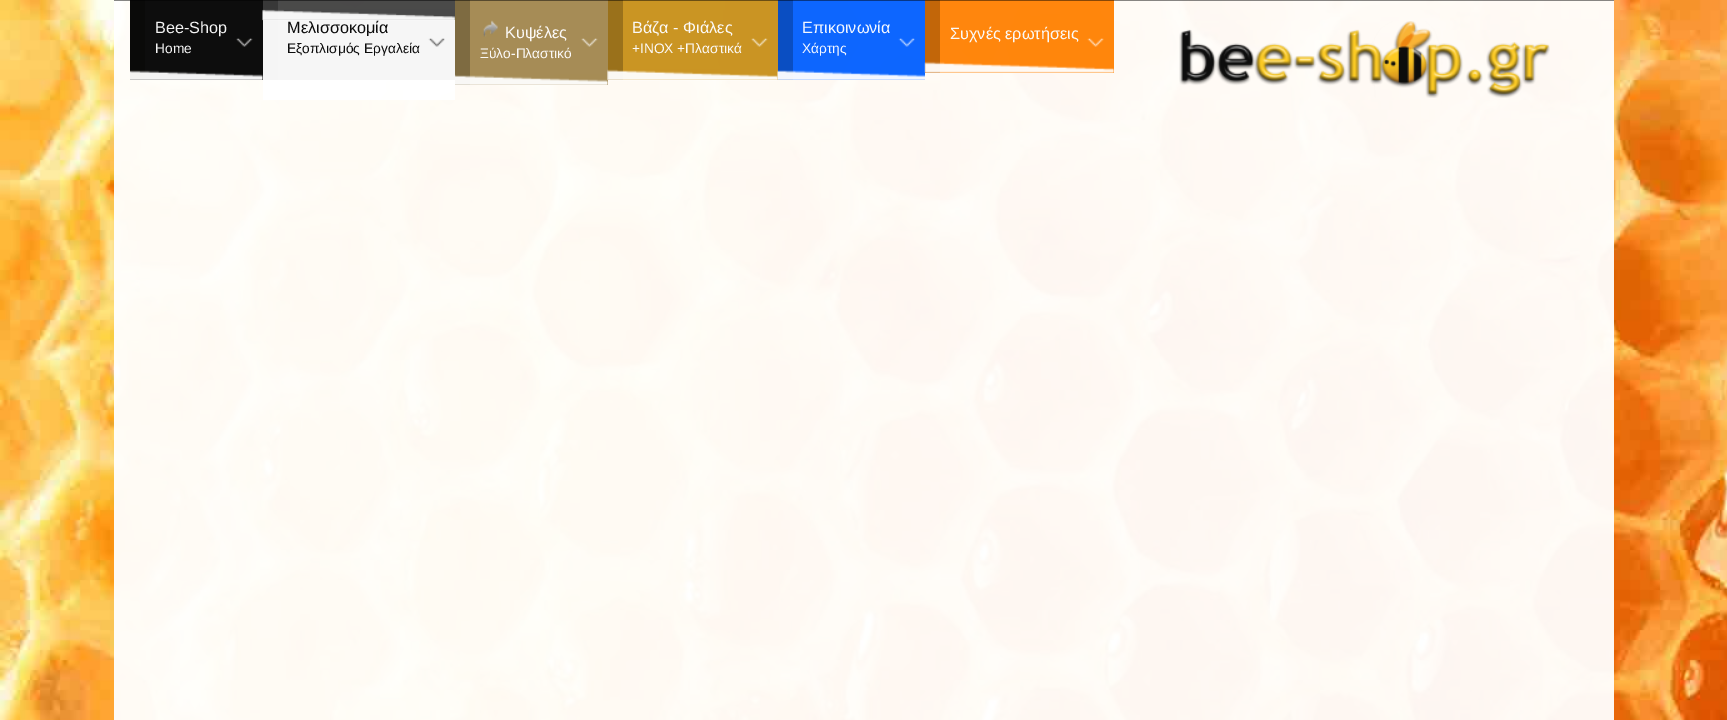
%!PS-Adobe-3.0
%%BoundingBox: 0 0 1727 720
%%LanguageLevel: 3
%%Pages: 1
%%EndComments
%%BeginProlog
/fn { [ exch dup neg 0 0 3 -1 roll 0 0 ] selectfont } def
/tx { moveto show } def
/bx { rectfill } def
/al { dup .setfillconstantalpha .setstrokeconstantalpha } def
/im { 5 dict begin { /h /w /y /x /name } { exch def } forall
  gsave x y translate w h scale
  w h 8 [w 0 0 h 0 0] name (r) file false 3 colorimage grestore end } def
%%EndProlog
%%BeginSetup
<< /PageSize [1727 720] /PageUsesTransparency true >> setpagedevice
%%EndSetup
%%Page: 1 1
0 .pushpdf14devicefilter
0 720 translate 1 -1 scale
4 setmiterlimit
1 setgray
0 0 1727 720 bx
(image0.raw) 0 0 1727 720 im
0.95 al
114 0 1500 720 bx
0 setgray
145 0 118 80 bx
1 al
0.039 0.039 0.035 setrgbcolor
130 0 15 80 bx
0.95 al
0.251 setgray
278 0 177 80 bx
1 al
0.22 setgray
263 0 15 80 bx
0.95 al
0.631 0.525 0.302 setrgbcolor
470 0 138 85 bx
1 al
0.494 0.42 0.255 setrgbcolor
455 0 15 85 bx
0.95 al
0.78 0.561 0.094 setrgbcolor
623 0 155 80 bx
1 al
0.604 0.443 0.106 setrgbcolor
608 0 15 80 bx
0.95 al
0 0.369 1 setrgbcolor
793 0 132 80 bx
1 al
0.039 0.306 0.761 setrgbcolor
778 0 15 80 bx
0.95 al
1 0.502 0 setrgbcolor
940 0 174 73 bx
1 al
0.761 0.4 0.035 setrgbcolor
925 0 15 73 bx
0.47 al
0 setgray
114 0 1500 1 bx
/LiberationSans-Regular 16.25 fn
1 al
0.953 setgray
(Bee-Shop) 155 33 tx
/LiberationSans-Regular 13.75 fn
(Home) 155 53 tx
(image1.raw) 236 38 17 9 im
(image2.raw) 130 70 133 10 im
(image3.raw) 262 9 193 12 im
0.95 al
1 setgray
263 20 192 80 bx
/LiberationSans-Regular 16.25 fn
1 al
0.047 setgray
(Μελισσοκομία) 287 33 tx
/LiberationSans-Regular 13.75 fn
(Εξοπλισμός Εργαλεία) 287 53 tx
(image4.raw) 428 38 17 9 im
(image5.raw) 483 20 15 17 im
/LiberationSans-Regular 16.25 fn
0.984 0.976 0.969 setrgbcolor
(Κυψέλες) 505 38 tx
(image6.raw) 581 38 17 9 im
/LiberationSans-Regular 13.75 fn
(Ξύλο-Πλαστικό) 480 58 tx
(image7.raw) 455 74 153 11 im
/LiberationSans-Regular 16.25 fn
(Βάζα - Φιάλες) 632 33 tx
/LiberationSans-Regular 13.75 fn
(+ΙΝΟΧ +Πλαστικά) 632 53 tx
(image8.raw) 751 38 17 9 im
(image9.raw) 607 69 171 12 im
/LiberationSans-Regular 16.25 fn
0.953 0.969 1 setrgbcolor
(Επικοινωνία) 802 33 tx
/LiberationSans-Regular 13.75 fn
(Χάρτης) 802 53 tx
(image10.raw) 898 38 17 9 im
(image11.raw) 777 70 148 10 im
/LiberationSans-Regular 16.25 fn
0.984 0.976 0.969 setrgbcolor
(Συχνές ερωτήσεις) 950 39 tx
(image12.raw) 1087 38 17 9 im
(image13.raw) 924 61 190 12 im
(image14.raw) 1179 21 371 77 im
.poppdf14devicefilter showpage
%%EOF
